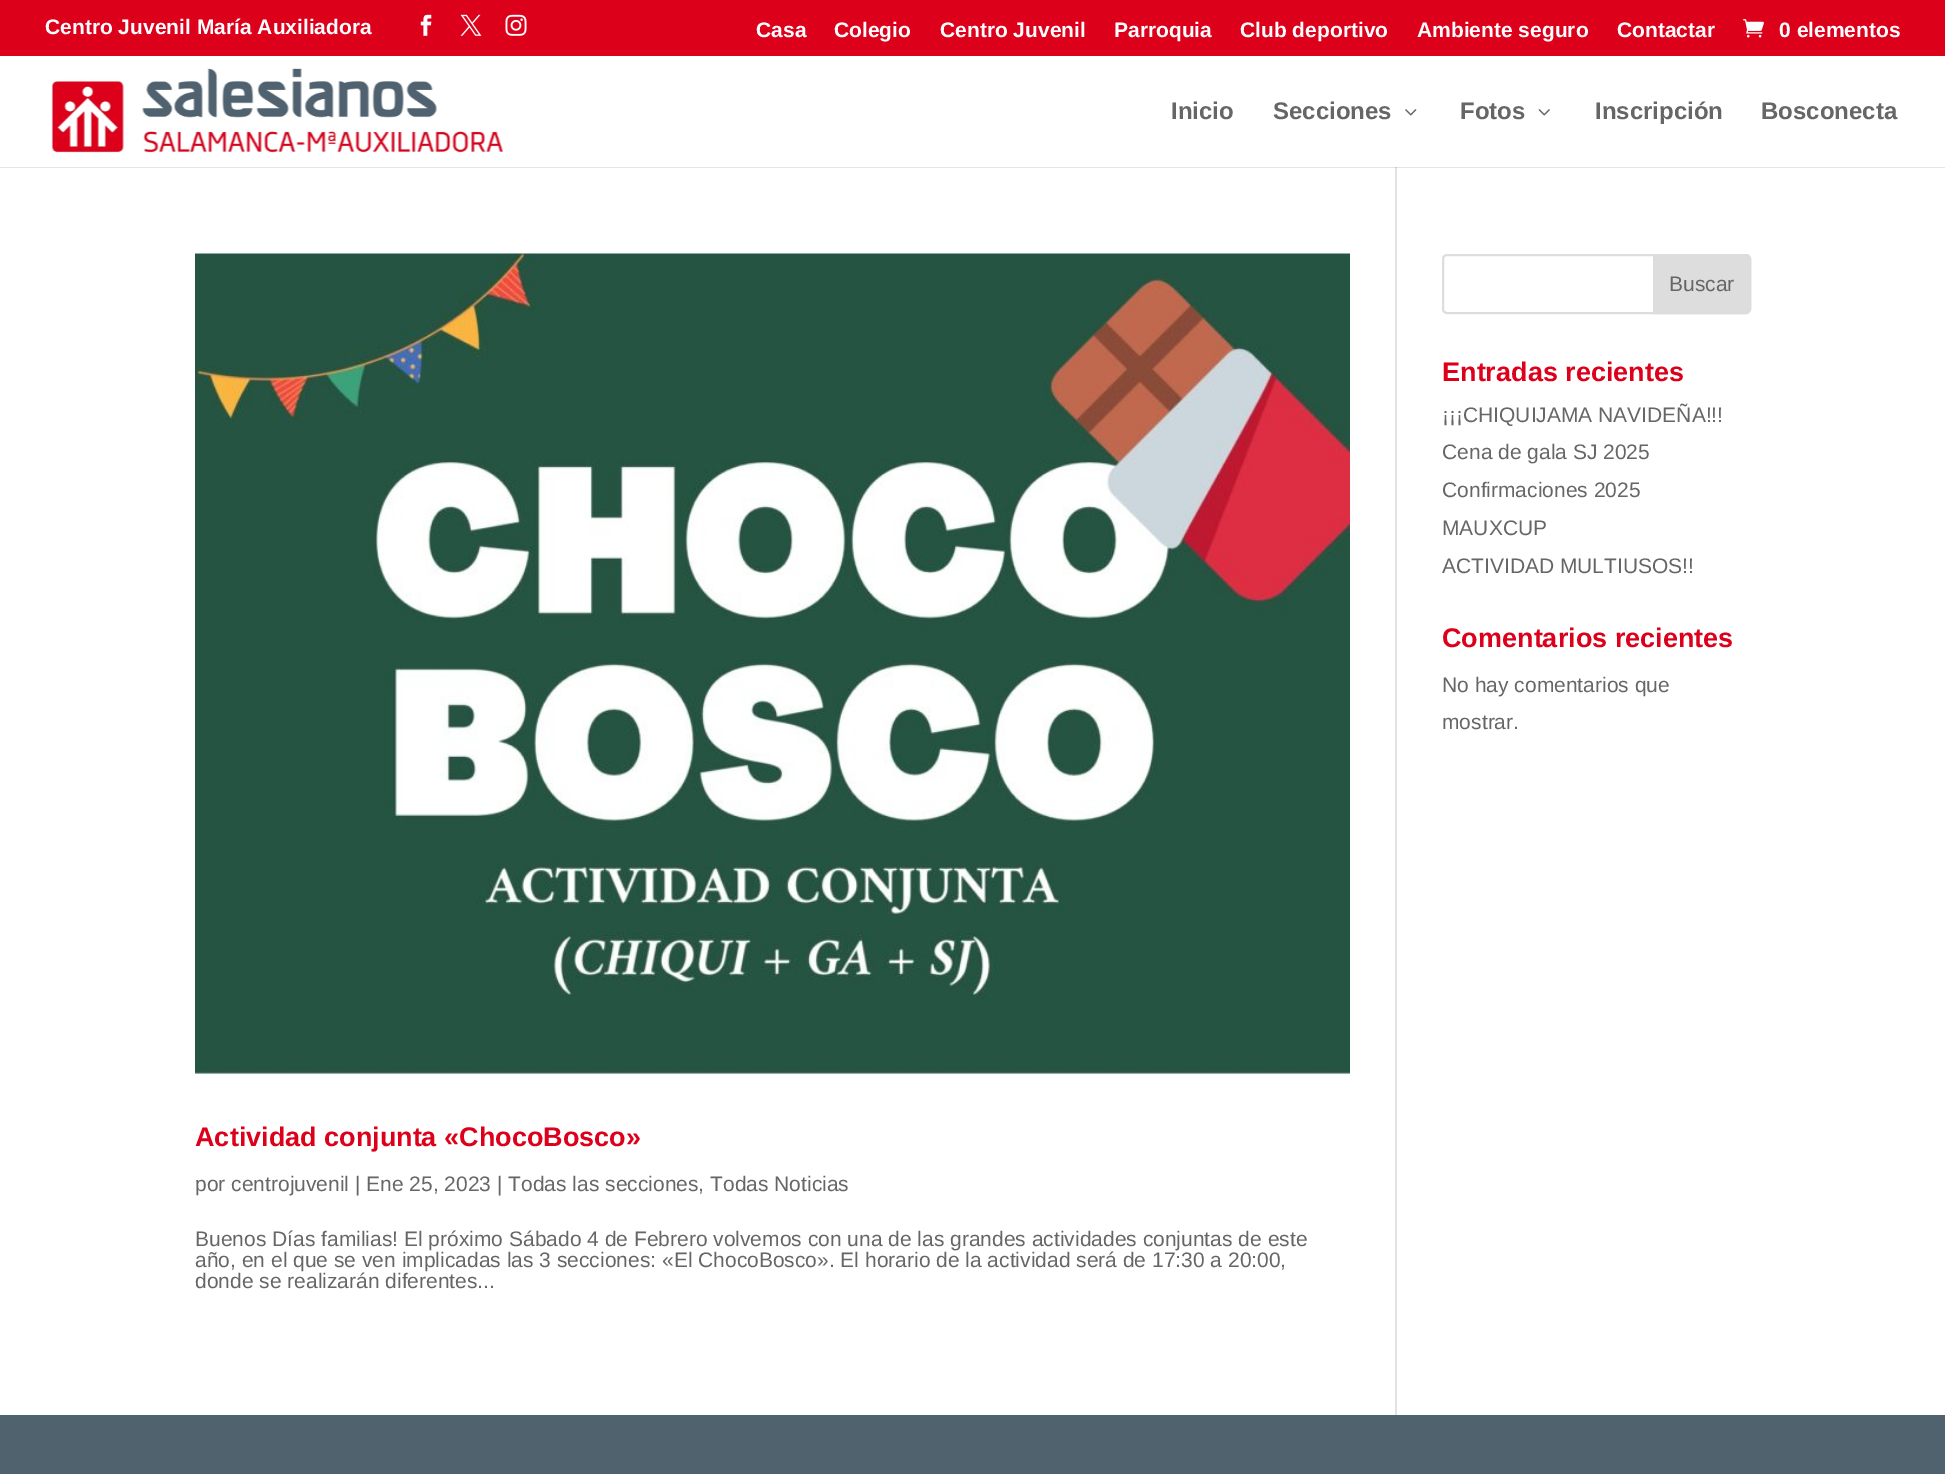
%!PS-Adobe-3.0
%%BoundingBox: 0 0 1945 1474
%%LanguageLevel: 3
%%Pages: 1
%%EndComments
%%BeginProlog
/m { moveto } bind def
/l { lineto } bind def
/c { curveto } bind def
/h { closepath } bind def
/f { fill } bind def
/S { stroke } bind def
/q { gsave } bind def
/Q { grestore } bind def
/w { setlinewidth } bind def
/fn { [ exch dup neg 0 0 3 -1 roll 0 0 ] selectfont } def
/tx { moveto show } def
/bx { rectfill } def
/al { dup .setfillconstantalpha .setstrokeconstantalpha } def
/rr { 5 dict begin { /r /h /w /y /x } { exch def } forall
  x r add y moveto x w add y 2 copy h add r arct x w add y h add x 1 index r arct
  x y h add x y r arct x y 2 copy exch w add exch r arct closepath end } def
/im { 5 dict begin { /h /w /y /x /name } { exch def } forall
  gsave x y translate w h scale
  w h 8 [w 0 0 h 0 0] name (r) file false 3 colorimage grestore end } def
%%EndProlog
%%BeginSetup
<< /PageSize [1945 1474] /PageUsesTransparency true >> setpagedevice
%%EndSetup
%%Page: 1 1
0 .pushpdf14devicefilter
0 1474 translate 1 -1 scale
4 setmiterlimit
1 setgray
0 0 1945 1474 bx
0.863 0 0.106 setrgbcolor
0 0 1945 56 bx
/LiberationSans-Bold 21 fn
1 setgray
(Centro Juvenil María Auxiliadora) 45 34 tx
(image0.raw) 420 14 12 22 im
(image1.raw) 460 14 22 22 im
(image2.raw) 505 14 22 22 im
(Casa) 756 37 tx
(Colegio) 834 37 tx
(Centro Juvenil) 940 37 tx
(Parroquia) 1114 37 tx
(Club deportivo) 1240 37 tx
(Ambiente seguro) 1417 37 tx
(Contactar) 1617 37 tx
(image3.raw) 1743 19 21 19 im
(0 elementos) 1779 37 tx
0.886 setgray
1395 167 2 1248 bx
0.1 al
0 setgray
0 166 m 0 168 l 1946 168 l 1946 57 l 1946 166 l h f
1 al
1 setgray
0 166 1945 1 bx
(image4.raw) 51 68 453 85 im
/LiberationSans-Bold 24 fn
0.4 setgray
(Inicio) 1171 119 tx
(Secciones) 1273 119 tx
(image5.raw) 1405 109 12 7 im
(Fotos) 1460 119 tx
(image6.raw) 1538 109 12 7 im
(Inscripción) 1595 119 tx
(Bosconecta) 1761 119 tx
0.867 setgray
2 w
1443 255 307 58 4 rr S
1654 255 m 1746 255 l 1748 255 1750 257 1750 259 c 1750 309 l 1750 311 1748 313 1746 313 c 1654 313 l h q f Q
S
/LiberationSans-Regular 21 fn
0.4 setgray
(Buscar) 1669 291 tx
/LiberationSans-Bold 27 fn
0.863 0 0.106 setrgbcolor
(Entradas recientes) 1442 381 tx
/LiberationSans-Regular 21 fn
0.4 setgray
(¡¡¡CHIQUIJAMA NAVIDEÑA!!!) 1442 422 tx
(Cena de gala SJ 2025) 1442 459 tx
(Confirmaciones 2025) 1442 497 tx
(MAUXCUP) 1442 535 tx
(ACTIVIDAD MULTIUSOS!!) 1442 573 tx
/LiberationSans-Bold 27 fn
0.863 0 0.106 setrgbcolor
(Comentarios recientes) 1442 647 tx
/LiberationSans-Regular 21 fn
0.4 setgray
(No hay comentarios que) 1442 692 tx
(mostrar.) 1442 729 tx
(image7.raw) 195 253 1155 821 im
/LiberationSans-Bold 27 fn
0.863 0 0.106 setrgbcolor
(Actividad conjunta «ChocoBosco») 195 1146 tx
/LiberationSans-Regular 21 fn
0.4 setgray
(por centrojuvenil | Ene 25, 2023 | Todas las secciones, Todas Noticias) 195 1191 tx
(Buenos Días familias! El próximo Sábado 4 de Febrero volvemos con una de las grandes actividades conjuntas de este) 195 1246 tx
(año, en el que se ven implicadas las 3 secciones: «El ChocoBosco». El horario de la actividad será de 17:30 a 20:00,) 195 1267 tx
(donde se realizarán diferentes...) 195 1288 tx
0.318 0.384 0.435 setrgbcolor
0 1415 1945 59 bx
.poppdf14devicefilter showpage
%%EOF
